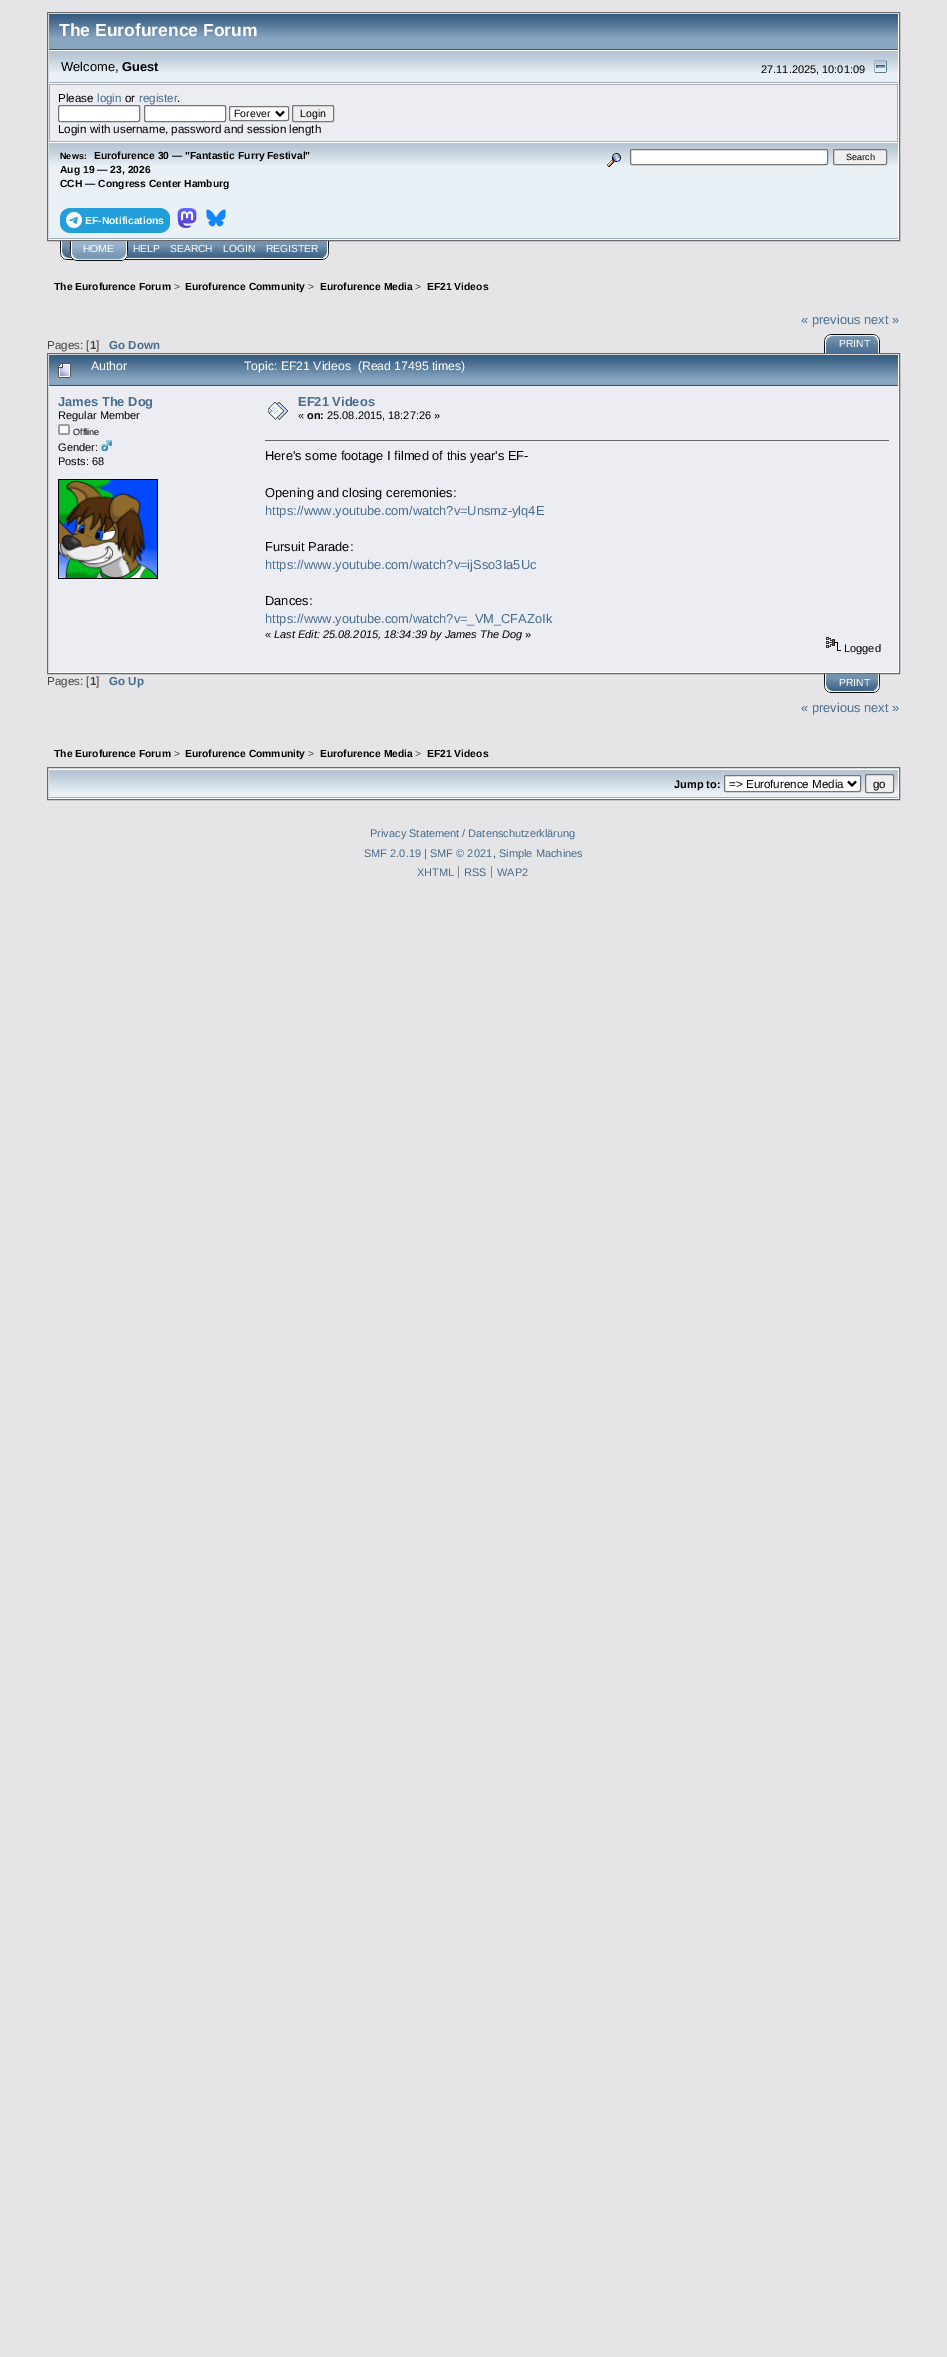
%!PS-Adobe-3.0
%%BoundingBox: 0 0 947 2357
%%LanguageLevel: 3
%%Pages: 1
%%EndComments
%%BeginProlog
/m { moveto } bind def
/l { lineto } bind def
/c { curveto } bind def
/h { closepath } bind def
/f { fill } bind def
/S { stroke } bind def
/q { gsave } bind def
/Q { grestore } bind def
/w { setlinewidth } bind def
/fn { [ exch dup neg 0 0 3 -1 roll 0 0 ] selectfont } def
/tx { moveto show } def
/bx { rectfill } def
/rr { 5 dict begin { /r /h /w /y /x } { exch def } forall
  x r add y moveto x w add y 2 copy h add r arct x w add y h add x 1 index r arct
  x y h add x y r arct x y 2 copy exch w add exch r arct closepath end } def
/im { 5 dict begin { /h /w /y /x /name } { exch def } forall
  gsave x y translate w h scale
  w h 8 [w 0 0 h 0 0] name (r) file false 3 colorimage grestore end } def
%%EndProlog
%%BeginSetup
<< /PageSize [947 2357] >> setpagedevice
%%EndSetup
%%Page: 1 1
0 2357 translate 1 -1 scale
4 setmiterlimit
0.898 0.898 0.91 setrgbcolor
0 0 947 2357 bx
1 setgray
47.5 12.5 m 899.5 12.5 l 899.5 240.5 l 47.5 240.5 l h q f Q
0.412 setgray
S
0.533 0.651 0.753 setrgbcolor
49 38 849 11 bx
(image0.raw) 49 14 849 24 im
0.216 0.333 0.463 setrgbcolor
49 49 849 1 bx
/LiberationSans-Bold 17.5 fn
1 setgray
(The Eurofurence Forum) 59 36 tx
0.914 0.941 0.965 setrgbcolor
49 73 849 9 bx
(image1.raw) 49 51 849 22 im
0.608 0.682 0.749 setrgbcolor
49 82 849 1 bx
/LiberationSans-Regular 12.9 fn
0 setgray
(Welcome,) 61 71 tx
/LiberationSans-Bold 12.9 fn
(Guest) 122 71 tx
/LiberationSans-Regular 11 fn
(27.11.2025, 10:01:09) 761 73 tx
(image2.raw) 874 60 13 13 im
0.678 setgray
49 84 849 58 bx
0.925 0.929 0.953 setrgbcolor
50 85 847 56 bx
/LiberationSans-Regular 11.6 fn
0 setgray
(Please) 58 102 tx
0.278 0.424 0.557 setrgbcolor
(login) 97 102 tx
0 setgray
(or) 125 102 tx
0.278 0.424 0.557 setrgbcolor
(register) 139 102 tx
0 setgray
(.) 177 102 tx
1 setgray
58.5 105.5 81 16 1.5 rr q f Q
0.463 setgray
S
1 setgray
144.5 105.5 81 16 1.5 rr q f Q
0.463 setgray
S
1 setgray
229.5 106.5 59 14 1.5 rr q f Q
0.463 setgray
S
0 setgray
2 w
276 111.5 m 280 115.5 l 284 111.5 l S
/LiberationSans-Regular 10.5 fn
(Forever) 234 117 tx
0.937 setgray
292.5 105.5 41 16 1.5 rr q f Q
0.463 setgray
1 w
S
0 setgray
(Login) 300 117 tx
/LiberationSans-Regular 11.6 fn
(Login with username, password and session length) 58 133 tx
0.914 0.941 0.965 setrgbcolor
49 165 849 73 bx
(image1.raw) 49 143 849 22 im
0.608 0.682 0.749 setrgbcolor
49 238 849 1 bx
/LiberationSans-Bold 9 fn
0 setgray
(News:) 60 159 tx
/LiberationSans-Bold 10.3 fn
(Eurofurence 30 — "Fantastic Furry Festival") 94 159 tx
(Aug 19 — 23, 2026) 60 173 tx
(CCH — Congress Center Hamburg) 60 187 tx
0.133 0.62 0.851 setrgbcolor
71 208 m 159 208 l 165 208 170 212 170 218 c 170 223 l 170 229 165 233 159 233 c 71 233 l 65 233 60 229 60 223 c 60 218 l 60 212 65 208 71 208 c h f
(image3.raw) 66 212 16 16 im
1 setgray
(EF-Notifications) 85 224 tx
(image4.raw) 177 208 20 20 im
(image5.raw) 206 209 20 18 im
(image6.raw) 607 153 14 14 im
630.5 149.5 197 15 1.5 rr q f Q
0.463 setgray
S
0.937 setgray
833.5 149.5 53 15 1.5 rr q f Q
0.463 setgray
S
/LiberationSans-Regular 9 fn
0 setgray
(Search) 846 160 tx
(image7.raw) 60 241 10 19 im
(image8.raw) 120 241 8 20 im
(image9.raw) 70 241 8 20 im
(image10.raw) 78 241 42 20 im
/LiberationSans-Regular 10.3 fn
1 setgray
(HOME) 83 252 tx
(image11.raw) 128 241 37 20 im
(HELP) 133 252 tx
(image12.raw) 165 241 53 20 im
(SEARCH) 170 252 tx
(image13.raw) 218 241 43 20 im
(LOGIN) 223 252 tx
(image14.raw) 261 241 68 19 im
(REGISTER) 266 252 tx
/LiberationSans-Bold 10.3 fn
0 setgray
(The Eurofurence Forum) 54 290 tx
/LiberationSans-Regular 10.3 fn
0.267 setgray
(>) 174 290 tx
/LiberationSans-Bold 10.3 fn
0 setgray
(Eurofurence Community) 185 290 tx
/LiberationSans-Regular 10.3 fn
0.267 setgray
(>) 308 290 tx
/LiberationSans-Bold 10.3 fn
0 setgray
(Eurofurence Media) 320 290 tx
/LiberationSans-Regular 10.3 fn
0.267 setgray
(>) 415 290 tx
/LiberationSans-Bold 10.3 fn
0 setgray
(EF21 Videos) 427 290 tx
/LiberationSans-Regular 12.9 fn
0.278 0.424 0.557 setrgbcolor
(« previous next ») 801 324 tx
/LiberationSans-Regular 11.6 fn
0.267 setgray
(Pages: [) 47 349 tx
/LiberationSans-Bold 11.6 fn
(1) 90 349 tx
/LiberationSans-Regular 11.6 fn
(]) 96 349 tx
/LiberationSans-Bold 11.6 fn
0.278 0.424 0.557 setrgbcolor
(Go Down) 109 349 tx
(image15.raw) 824 334 40 19 im
(image16.raw) 834 334 46 19 im
/LiberationSans-Regular 10.3 fn
1 setgray
(PRINT) 839 347 tx
47.5 353.5 m 899.5 353.5 l 899.5 673.5 l 47.5 673.5 l h q f Q
0.412 setgray
S
0.533 0.651 0.753 setrgbcolor
49 379 849 6 bx
(image0.raw) 49 355 849 24 im
0.216 0.333 0.463 setrgbcolor
49 385 849 1 bx
(image17.raw) 58 363 13 15 im
/LiberationSans-Regular 12.25 fn
1 setgray
(Author) 91 370 tx
(Topic: EF21 Videos  \(Read 17495 times\)) 244 370 tx
0.925 0.929 0.953 setrgbcolor
49 386 849 286 bx
/LiberationSans-Bold 12.9 fn
0.278 0.424 0.557 setrgbcolor
(James The Dog) 58 406 tx
/LiberationSans-Regular 11 fn
0 setgray
(Regular Member) 58 419 tx
(image18.raw) 58 424 12 11 im
/LiberationSans-Regular 9 fn
(Offline) 73 435 tx
/LiberationSans-Regular 11 fn
(Gender:) 58 451 tx
(image19.raw) 101 440 11 11 im
(Posts: 68) 58 465 tx
(image20.raw) 58 479 100 100 im
(image21.raw) 268 402 20 18 im
/LiberationSans-Bold 12.9 fn
0.278 0.424 0.557 setrgbcolor
(EF21 Videos) 298 406 tx
/LiberationSans-Regular 11 fn
0 setgray
(«) 298 419 tx
/LiberationSans-Bold 11 fn
(on:) 307 419 tx
/LiberationSans-Regular 11 fn
(25.08.2015, 18:27:26 ») 327 419 tx
0.4 setgray
265 440 624 1 bx
/LiberationSans-Regular 12.9 fn
0 setgray
(Here's some footage I filmed of this year's EF-) 265 460 tx
(Opening and closing ceremonies:) 265 497 tx
0.278 0.424 0.557 setrgbcolor
(https://www.youtube.com/watch?v=Unsmz-ylq4E) 265 515 tx
0 setgray
(Fursuit Parade:) 265 551 tx
0.278 0.424 0.557 setrgbcolor
(https://www.youtube.com/watch?v=ijSso3Ia5Uc) 265 569 tx
0 setgray
(Dances:) 265 605 tx
0.278 0.424 0.557 setrgbcolor
(https://www.youtube.com/watch?v=_VM_CFAZoIk) 265 623 tx
/LiberationSans-Regular 11 fn
0 setgray
(«) 265 638 tx
/LiberationSans-Italic 11 fn
(Last Edit: 25.08.2015, 18:34:39 by James The Dog) 274 638 tx
/LiberationSans-Regular 11 fn
(») 525 638 tx
(image22.raw) 826 637 15 14 im
(Logged) 844 652 tx
/LiberationSans-Regular 11.6 fn
0.267 setgray
(Pages: [) 47 685 tx
/LiberationSans-Bold 11.6 fn
(1) 90 685 tx
/LiberationSans-Regular 11.6 fn
(]) 96 685 tx
/LiberationSans-Bold 11.6 fn
0.278 0.424 0.557 setrgbcolor
(Go Up) 109 685 tx
(image23.raw) 824 674 40 19 im
(image24.raw) 864 674 16 19 im
/LiberationSans-Regular 10.3 fn
1 setgray
(PRINT) 839 686 tx
/LiberationSans-Regular 12.9 fn
0.278 0.424 0.557 setrgbcolor
(« previous next ») 801 712 tx
/LiberationSans-Bold 10.3 fn
0 setgray
(The Eurofurence Forum) 54 757 tx
/LiberationSans-Regular 10.3 fn
0.267 setgray
(>) 174 757 tx
/LiberationSans-Bold 10.3 fn
0 setgray
(Eurofurence Community) 185 757 tx
/LiberationSans-Regular 10.3 fn
0.267 setgray
(>) 308 757 tx
/LiberationSans-Bold 10.3 fn
0 setgray
(Eurofurence Media) 320 757 tx
/LiberationSans-Regular 10.3 fn
0.267 setgray
(>) 415 757 tx
/LiberationSans-Bold 10.3 fn
0 setgray
(EF21 Videos) 427 757 tx
1 setgray
47.5 767.5 m 899.5 767.5 l 899.5 799.5 l 47.5 799.5 l h q f Q
0.412 setgray
S
0.914 0.941 0.965 setrgbcolor
49 792 849 5 bx
(image1.raw) 49 770 849 22 im
0.608 0.682 0.749 setrgbcolor
49 797 849 1 bx
/LiberationSans-Bold 11 fn
0 setgray
(Jump to:) 674 788 tx
1 setgray
724.5 775.5 136 16 1.5 rr q f Q
0.463 setgray
S
0 setgray
2 w
848 781.5 m 852 785.5 l 856 781.5 l S
/LiberationSans-Regular 11.6 fn
(=> Eurofurence Media) 729 788 tx
0.937 setgray
865.5 774.5 28 18 1.5 rr q f Q
0.463 setgray
1 w
S
0 setgray
(go) 873 788 tx
/LiberationSans-Regular 11 fn
0.278 0.424 0.557 setrgbcolor
(Privacy Statement / Datenschutzerklärung) 370 837 tx
(SMF 2.0.19) 364 857 tx
0.267 setgray
(|) 424 857 tx
0.278 0.424 0.557 setrgbcolor
(SMF © 2021) 430 857 tx
0.267 setgray
(,) 493 857 tx
0.278 0.424 0.557 setrgbcolor
(Simple Machines) 499 857 tx
(XHTML) 417 876 tx
0.533 setgray
458 866 1 12 bx
0.278 0.424 0.557 setrgbcolor
(RSS) 464 876 tx
0.533 setgray
491 866 1 12 bx
0.278 0.424 0.557 setrgbcolor
(WAP2) 497 876 tx
showpage
%%EOF
